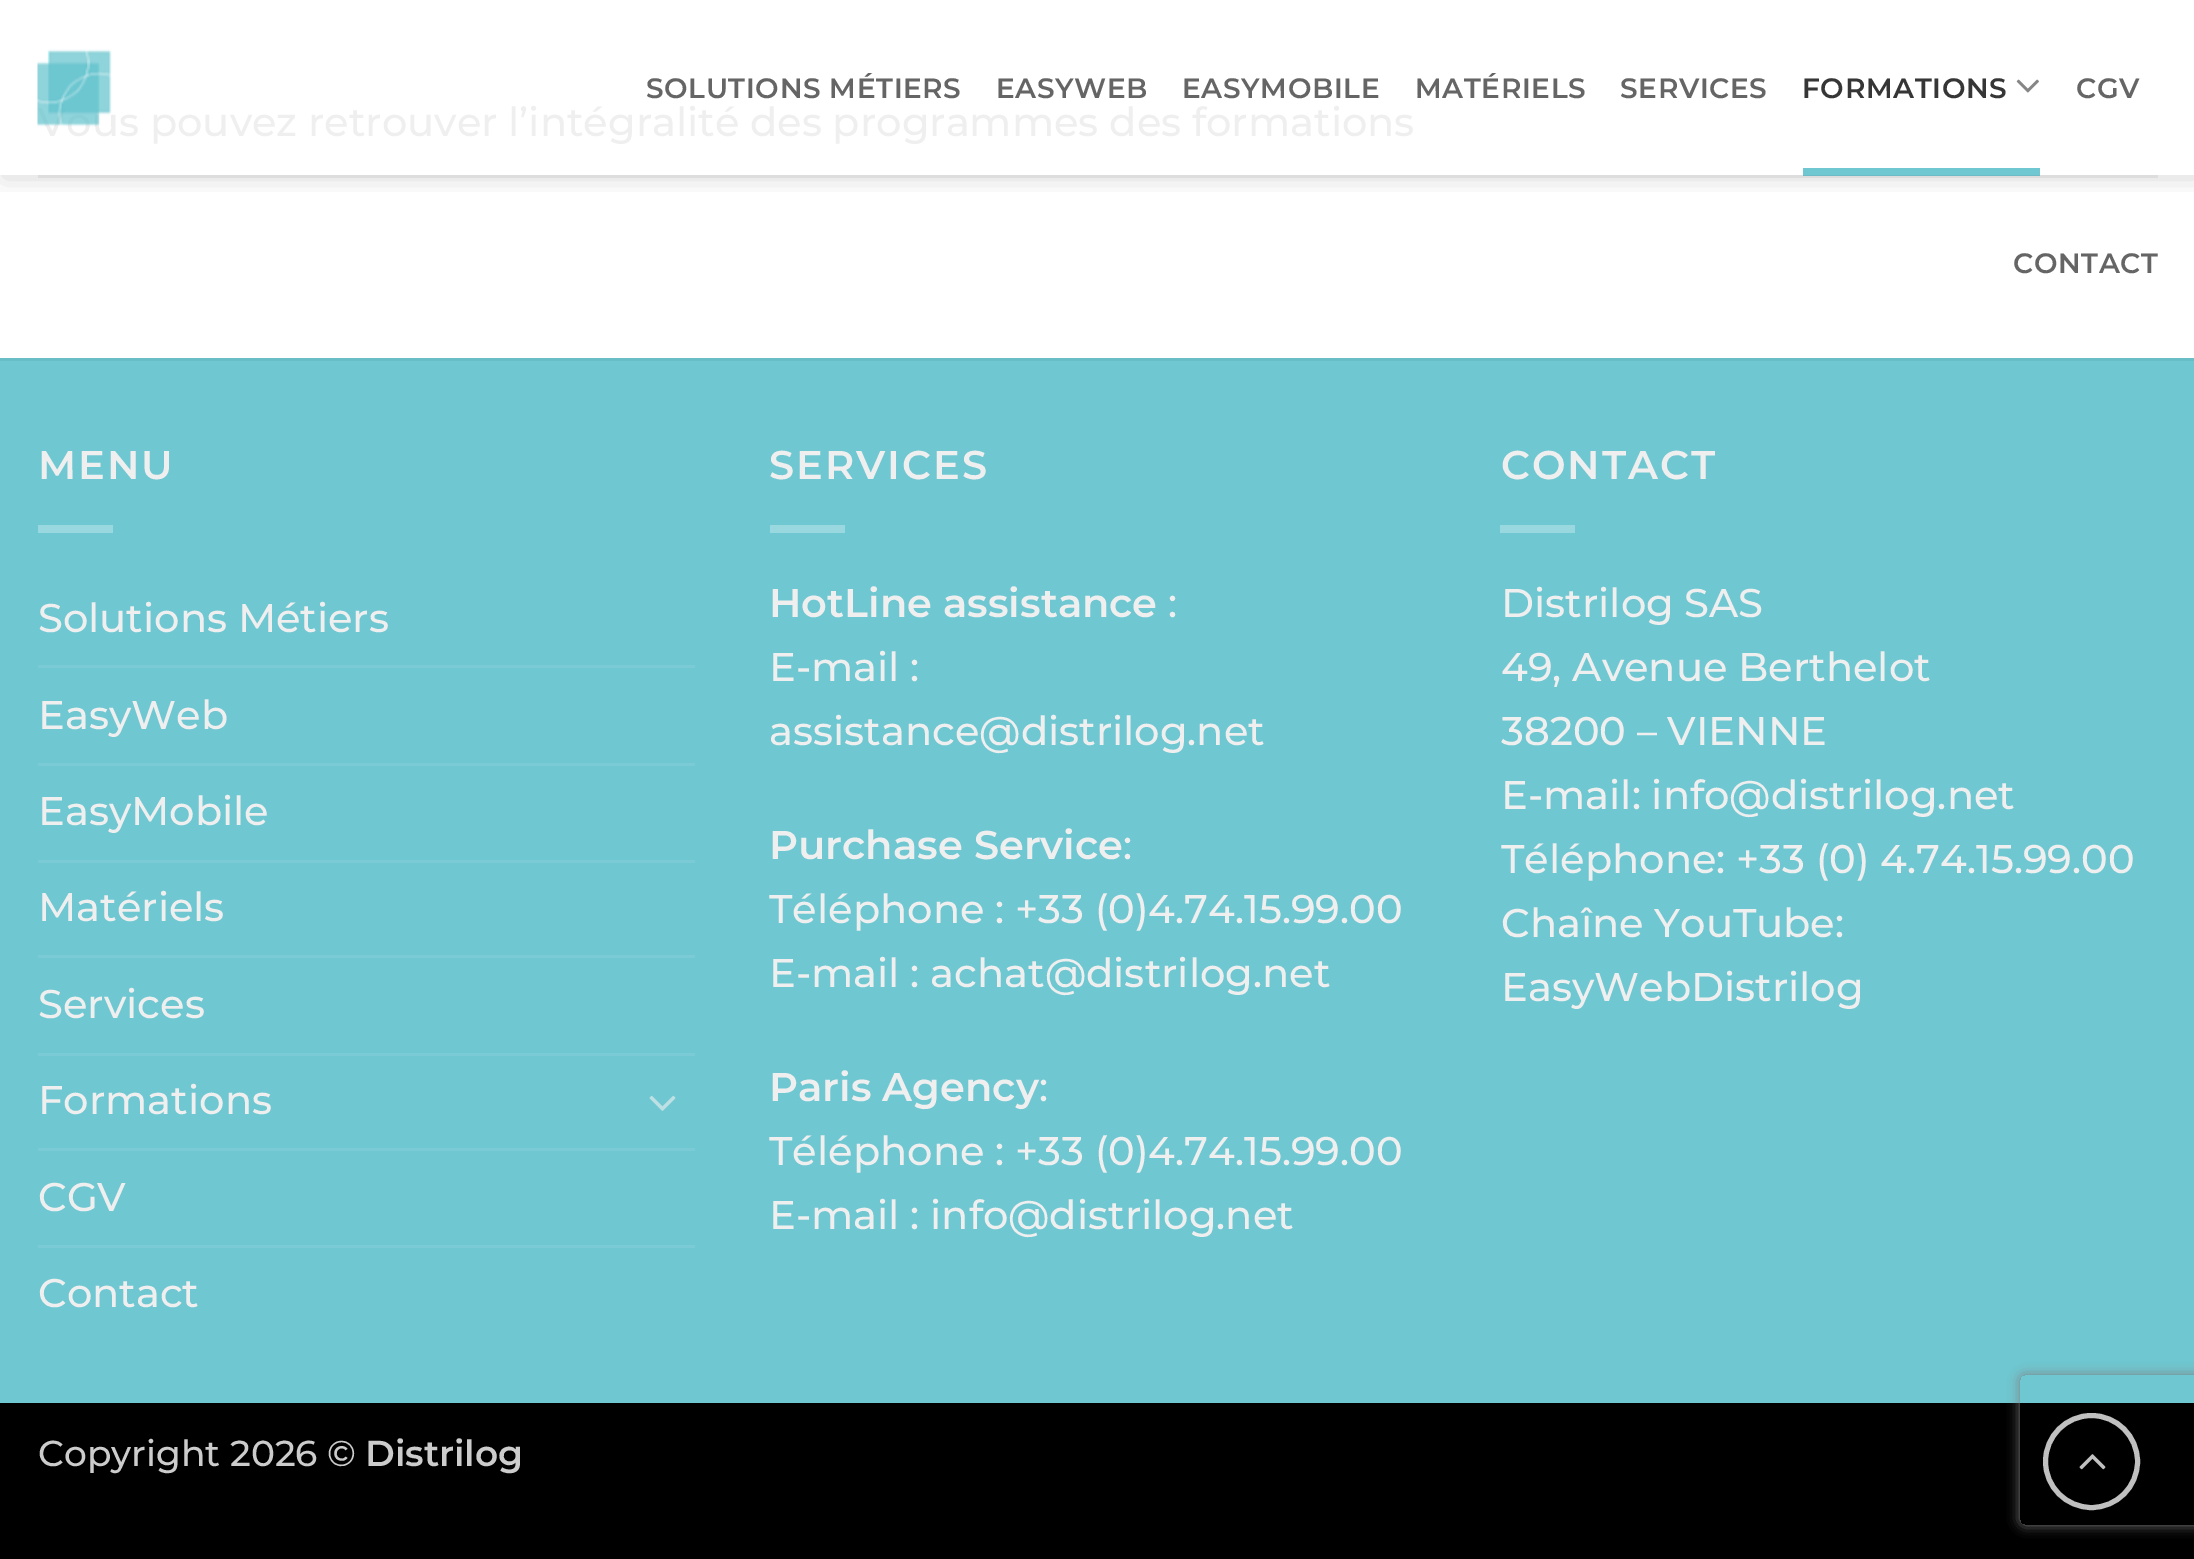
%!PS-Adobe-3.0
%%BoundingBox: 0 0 2194 1559
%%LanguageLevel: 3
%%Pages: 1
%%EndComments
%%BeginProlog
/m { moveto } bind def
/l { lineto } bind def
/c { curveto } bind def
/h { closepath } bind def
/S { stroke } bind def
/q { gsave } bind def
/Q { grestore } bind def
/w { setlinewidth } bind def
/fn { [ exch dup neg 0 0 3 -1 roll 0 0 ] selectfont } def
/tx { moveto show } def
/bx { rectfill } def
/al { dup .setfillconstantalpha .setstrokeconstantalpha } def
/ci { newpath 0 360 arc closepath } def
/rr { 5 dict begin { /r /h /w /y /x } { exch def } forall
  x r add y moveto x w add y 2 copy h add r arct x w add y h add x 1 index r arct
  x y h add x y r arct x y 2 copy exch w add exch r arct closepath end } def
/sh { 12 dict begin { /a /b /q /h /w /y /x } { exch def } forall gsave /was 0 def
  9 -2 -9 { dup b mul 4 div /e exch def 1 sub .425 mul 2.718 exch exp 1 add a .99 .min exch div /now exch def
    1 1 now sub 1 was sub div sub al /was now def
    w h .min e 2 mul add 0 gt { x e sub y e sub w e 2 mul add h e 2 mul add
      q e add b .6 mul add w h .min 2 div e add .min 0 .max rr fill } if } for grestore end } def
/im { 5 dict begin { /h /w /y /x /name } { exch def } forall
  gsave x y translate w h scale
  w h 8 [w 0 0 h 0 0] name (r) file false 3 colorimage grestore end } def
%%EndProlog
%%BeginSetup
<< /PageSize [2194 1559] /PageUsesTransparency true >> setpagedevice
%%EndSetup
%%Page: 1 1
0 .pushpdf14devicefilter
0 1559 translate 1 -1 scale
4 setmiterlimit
1 setgray
0 0 2194 1559 bx
q
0 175 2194 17 rectclip
0 setgray
3 3 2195 175 0 12.5 0.15 sh
Q
/Montserrat-Medium 40 fn
0.937 setgray
(Vous pouvez retrouver l’intégralité des programmes des formations) 38 136 tx
(image0.raw) 37 49 75 78 im
/Montserrat-SemiBold 28 fn
0.396 setgray
646 98 m 0.6 0 (SOLUTIONS MÉTIERS) ashow
996 98 m 0.6 0 (EASYWEB) ashow
1182 98 m 0.6 0 (EASYMOBILE) ashow
1415 98 m 0.6 0 (MATÉRIELS) ashow
1620 98 m 0.6 0 (SERVICES) ashow
0.212 setgray
1802 98 m 0.6 0 (FORMATIONS) ashow
(image1.raw) 2016 79 23 14 im
0.431 0.78 0.82 setrgbcolor
1803 168 237 8 bx
0.396 setgray
2076 98 m 0.6 0 (CGV) ashow
2013 273 m 0.6 0 (CONTACT) ashow
0.1 al
0.384 0.369 0.369 setrgbcolor
38 175 2120 3 bx
1 al
0.431 0.78 0.82 setrgbcolor
0 361 2194 1042 bx
0.412 0.741 0.78 setrgbcolor
0 358 2194 3 bx
/Montserrat-SemiBold 40 fn
0.937 setgray
38 479 m 2 0 (MENU) ashow
0.604 0.847 0.875 setrgbcolor
38 525 75 8 bx
/Montserrat-Medium 40 fn
0.937 setgray
(Solutions Métiers) 38 632 tx
0.478 0.796 0.835 setrgbcolor
38 665 657 3 bx
0.937 setgray
(EasyWeb) 38 729 tx
0.478 0.796 0.835 setrgbcolor
38 763 657 3 bx
0.937 setgray
(EasyMobile) 38 825 tx
0.478 0.796 0.835 setrgbcolor
38 860 657 3 bx
0.937 setgray
(Matériels) 38 921 tx
0.478 0.796 0.835 setrgbcolor
38 955 657 3 bx
0.937 setgray
(Services) 38 1018 tx
0.478 0.796 0.835 setrgbcolor
38 1053 657 3 bx
0.937 setgray
(Formations) 38 1114 tx
(image2.raw) 649 1095 27 16 im
0.478 0.796 0.835 setrgbcolor
38 1148 657 3 bx
0.937 setgray
(CGV) 38 1211 tx
0.478 0.796 0.835 setrgbcolor
38 1245 657 3 bx
0.937 setgray
(Contact) 38 1307 tx
/Montserrat-SemiBold 40 fn
769 479 m 2 0 (SERVICES) ashow
0.604 0.847 0.875 setrgbcolor
770 525 75 8 bx
0.937 setgray
(HotLine assistance) 769 617 tx
/Montserrat-Medium 40 fn
(:) 1168 617 tx
(E-mail :) 769 681 tx
(assistance@distrilog.net) 769 745 tx
/Montserrat-SemiBold 40 fn
(Purchase Service) 769 859 tx
/Montserrat-Medium 40 fn
(:) 1123 859 tx
(Téléphone : +33 \(0\)4.74.15.99.00) 769 923 tx
(E-mail : achat@distrilog.net) 769 987 tx
/Montserrat-SemiBold 40 fn
(Paris Agency) 769 1101 tx
/Montserrat-Medium 40 fn
(:) 1039 1101 tx
(Téléphone : +33 \(0\)4.74.15.99.00) 769 1165 tx
(E-mail : info@distrilog.net) 769 1229 tx
/Montserrat-SemiBold 40 fn
1501 479 m 2 0 (CONTACT) ashow
0.604 0.847 0.875 setrgbcolor
1500 525 75 8 bx
/Montserrat-Medium 40 fn
0.937 setgray
(Distrilog SAS) 1501 617 tx
(49, Avenue Berthelot) 1501 681 tx
(38200 – VIENNE) 1501 745 tx
(E-mail: info@distrilog.net) 1501 809 tx
(Téléphone: +33 \(0\) 4.74.15.99.00) 1501 873 tx
(Chaîne YouTube:) 1501 937 tx
(EasyWebDistrilog) 1501 1001 tx
0 setgray
0 1403 2194 156 bx
/Montserrat-Medium 36 fn
0.8 setgray
(Copyright 2026 ©) 38 1466 tx
/Montserrat-SemiBold 36 fn
(Distrilog) 365 1466 tx
q
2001 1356 m 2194 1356 l 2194 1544 l 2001 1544 l h 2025 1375 m 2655 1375 l 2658 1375 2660 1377 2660 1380 c 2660 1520 l 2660 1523 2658 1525 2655 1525 c 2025 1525 l 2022 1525 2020 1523 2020 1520 c 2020 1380 l 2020 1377 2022 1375 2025 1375 c h eoclip newpath
0.502 setgray
2020 1375 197 150 5 6 1 sh
Q
0.753 setgray
5 w
2091.5 1461.5 46 ci S
(image3.raw) 2079 1454 27 16 im
.poppdf14devicefilter showpage
%%EOF
